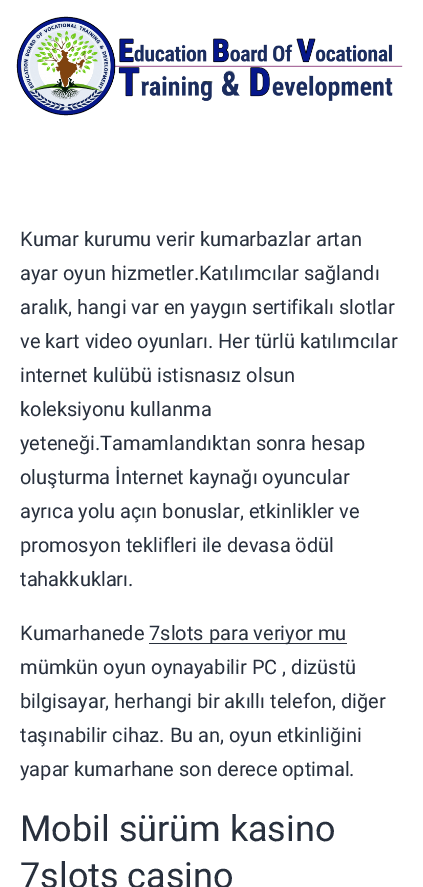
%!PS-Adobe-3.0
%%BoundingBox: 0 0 423 887
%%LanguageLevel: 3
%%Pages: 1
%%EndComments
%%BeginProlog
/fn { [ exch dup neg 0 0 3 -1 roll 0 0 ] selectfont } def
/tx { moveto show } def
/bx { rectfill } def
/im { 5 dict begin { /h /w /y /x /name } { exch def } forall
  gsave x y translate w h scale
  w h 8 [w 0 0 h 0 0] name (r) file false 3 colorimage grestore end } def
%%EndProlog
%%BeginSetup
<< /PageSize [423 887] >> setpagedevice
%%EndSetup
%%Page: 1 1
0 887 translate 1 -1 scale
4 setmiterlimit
1 setgray
0 0 423 887 bx
(image0.raw) 16 16 387 100 im
/Roboto-Regular 20 fn
0.157 0.188 0.239 setrgbcolor
(Kumar kurumu verir kumarbazlar artan) 20 246 tx
(ayar oyun hizmetler.Katılımcılar sağlandı) 20 280 tx
(aralık, hangi var en yaygın sertifikalı slotlar) 20 314 tx
(ve kart video oyunları. Her türlü katılımcılar) 20 348 tx
(internet kulübü istisnasız olsun) 20 382 tx
(koleksiyonu kullanma) 20 416 tx
(yeteneği.Tamamlandıktan sonra hesap) 20 450 tx
(oluşturma İnternet kaynağı oyuncular) 20 484 tx
(ayrıca yolu açın bonuslar, etkinlikler ve) 20 518 tx
(promosyon teklifleri ile devasa ödül) 20 552 tx
(tahakkukları.) 20 586 tx
(Kumarhanede) 20 640 tx
149 643 198 1 bx
(7slots para veriyor mu) 149 640 tx
(mümkün oyun oynayabilir PC , dizüstü) 20 674 tx
(bilgisayar, herhangi bir akıllı telefon, diğer) 20 708 tx
(taşınabilir cihaz. Bu an, oyun etkinliğini) 20 742 tx
(yapar kumarhane son derece optimal.) 20 776 tx
/Roboto-Regular 36 fn
(Mobil sürüm kasino) 20 841 tx
(7slots casino) 20 888 tx
showpage
%%EOF
